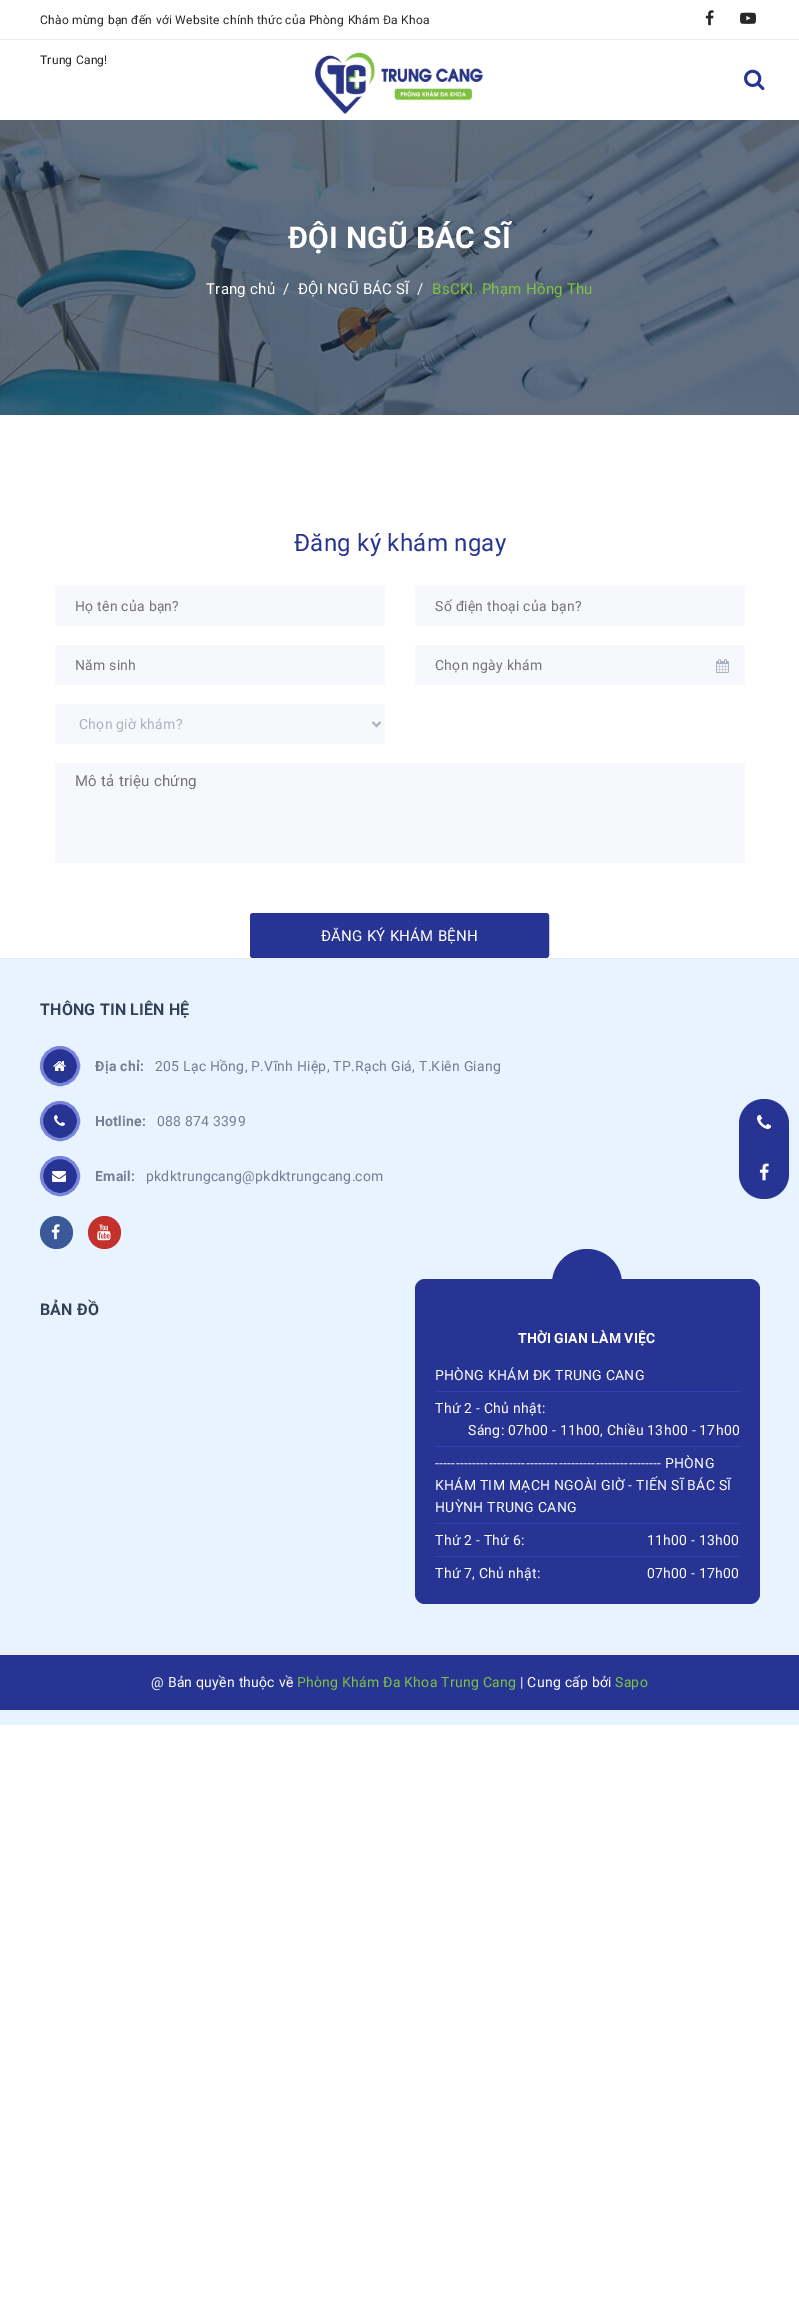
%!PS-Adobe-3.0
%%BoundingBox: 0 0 799 2297
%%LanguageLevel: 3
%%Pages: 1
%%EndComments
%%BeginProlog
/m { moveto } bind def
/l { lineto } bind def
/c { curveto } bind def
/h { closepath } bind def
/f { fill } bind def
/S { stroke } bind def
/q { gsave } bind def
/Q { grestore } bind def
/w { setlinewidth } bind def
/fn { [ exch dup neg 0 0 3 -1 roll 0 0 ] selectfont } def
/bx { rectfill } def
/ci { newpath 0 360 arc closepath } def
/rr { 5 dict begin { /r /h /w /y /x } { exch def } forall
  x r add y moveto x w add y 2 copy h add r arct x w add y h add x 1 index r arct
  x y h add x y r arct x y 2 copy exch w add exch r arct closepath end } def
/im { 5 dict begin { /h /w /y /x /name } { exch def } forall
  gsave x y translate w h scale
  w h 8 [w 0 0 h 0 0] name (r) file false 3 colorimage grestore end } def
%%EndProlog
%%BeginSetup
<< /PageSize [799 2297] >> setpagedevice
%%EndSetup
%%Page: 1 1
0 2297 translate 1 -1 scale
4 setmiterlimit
1 setgray
0 0 799 2297 bx
0.922 setgray
0 39 799 1 bx
/Roboto-Regular 12 fn
0.157 setgray
40 24 m 0.25 0 (Chào mừng bạn đến với Website chính thức của Phòng Khám Đa Khoa) ashow
40 64 m 0.25 0 (Trung Cang!) ashow
(image0.raw) 705 10 9 16 im
(image1.raw) 740 12 16 12 im
(image2.raw) 315 52 169 62 im
(image3.raw) 744 69 21 22 im
(image4.raw) 0 120 799 295 im
/Roboto-Bold 30 fn
1 setgray
288 248 m 0.25 0 (ĐỘI NGŨ BÁC SĨ) ashow
/Roboto-Regular 15 fn
206 294 m 0.25 0 (Trang chủ) ashow
283 294 m 0.25 0 (/) ashow
298 294 m 0.25 0 (ĐỘI NGŨ BÁC SĨ) ashow
417 294 m 0.25 0 (/) ashow
0.498 0.757 0.255 setrgbcolor
432 294 m 0.25 0 (BsCKI. Phạm Hồng Thu) ashow
/Roboto-Regular 24 fn
0.153 0.204 0.58 setrgbcolor
294 551 m 0.25 0 (Đăng ký khám ngay) ashow
0.969 0.973 0.988 setrgbcolor
55 586 330 40 3 rr f
/Roboto-Regular 14 fn
0.459 setgray
75 611 m 0.25 0 (Họ tên của bạn?) ashow
0.969 0.973 0.988 setrgbcolor
415 586 330 40 3 rr f
0.459 setgray
435 611 m 0.25 0 (Số điện thoại của bạn?) ashow
0.969 0.973 0.988 setrgbcolor
55 645 330 40 3 rr f
0.459 setgray
75 670 m 0.25 0 (Năm sinh) ashow
0.969 0.973 0.988 setrgbcolor
415 645 330 40 3 rr f
0.459 setgray
435 670 m 0.25 0 (Chọn ngày khám) ashow
(image5.raw) 716 659 13 14 im
0.969 0.973 0.988 setrgbcolor
55 704 330 40 3 rr f
0.671 0.698 0.761 setrgbcolor
2 w
372.5 722 m 376.5 726 l 380.5 722 l S
79 729 m 0.25 0 (Chọn giờ khám?) ashow
0.969 0.973 0.988 setrgbcolor
55 763 690 100 3 rr f
/Roboto-Regular 15 fn
0.459 setgray
75 786 m 0.25 0 (Mô tả triệu chứng) ashow
0.153 0.204 0.58 setrgbcolor
250.5 913.5 298 44 2.5 rr q f Q
1 w
S
1 setgray
321 941 m 0.25 0 (ĐĂNG KÝ KHÁM BỆNH) ashow
0.906 0.957 1 setrgbcolor
0 959 799 766 bx
0.922 setgray
0 958 799 1 bx
/Roboto-Bold 16 fn
0.204 0.251 0.349 setrgbcolor
40 1015 m 0.2 0 (THÔNG TIN LIÊN HỆ) ashow
0.153 0.204 0.58 setrgbcolor
60 1066 18.5 ci q f Q
0.471 0.518 0.863 setrgbcolor
3 w
S
(image6.raw) 53 1061 13 10 im
/Roboto-Bold 14 fn
0.451 0.494 0.584 setrgbcolor
95 1071 m 0.25 0 (Địa chỉ:) ashow
/Roboto-Regular 14 fn
155 1071 m 0.25 0 (205 Lạc Hồng, P.Vĩnh Hiệp, TP.Rạch Giá, T.Kiên Giang) ashow
0.153 0.204 0.58 setrgbcolor
60 1121 18.5 ci q f Q
0.471 0.518 0.863 setrgbcolor
S
(image7.raw) 54 1115 11 11 im
/Roboto-Bold 14 fn
0.451 0.494 0.584 setrgbcolor
95 1126 m 0.25 0 (Hotline:) ashow
/Roboto-Regular 14 fn
157 1126 m 0.25 0 (088 874 3399) ashow
0.153 0.204 0.58 setrgbcolor
60 1176 18.5 ci q f Q
0.471 0.518 0.863 setrgbcolor
S
(image8.raw) 52 1171 14 11 im
/Roboto-Bold 14 fn
0.451 0.494 0.584 setrgbcolor
95 1181 m 0.25 0 (Email:) ashow
/Roboto-Regular 14 fn
146 1181 m 0.25 0 (pkdktrungcang@pkdktrungcang.com) ashow
0.231 0.349 0.596 setrgbcolor
56.5 1232.5 16.5 ci f
(image9.raw) 51 1224 9 16 im
0.769 0.188 0.169 setrgbcolor
104.5 1232.5 16.5 ci f
(image10.raw) 97 1224 14 17 im
/Roboto-Bold 16 fn
0.204 0.251 0.349 setrgbcolor
40 1315 m 0.2 0 (BẢN ĐỒ) ashow
0.153 0.204 0.58 setrgbcolor
415 1279 345 325 10 rr f
587 1284 35 ci f
/Roboto-Bold 14 fn
1 setgray
518 1343 m 0.1 0 (THỜI GIAN LÀM VIỆC) ashow
0.188 0.247 0.706 setrgbcolor
435 1391 305 1 bx
/Roboto-Regular 14 fn
1 setgray
435 1380 m 0.25 0 (PHÒNG KHÁM ĐK TRUNG CANG) ashow
0.188 0.247 0.706 setrgbcolor
435 1446 305 1 bx
1 setgray
435 1413 m 0.25 0 (Thứ 2 - Chủ nhật:) ashow
468 1435 m 0.25 0 (Sáng: 07h00 - 11h00, Chiều 13h00 - 17h00) ashow
0.188 0.247 0.706 setrgbcolor
435 1523 305 1 bx
1 setgray
435 1468 m 0.25 0 (------------------------------------------------------- PHÒNG) ashow
435 1490 m 0.25 0 (KHÁM TIM MẠCH NGOÀI GIỜ - TIẾN SĨ BÁC SĨ) ashow
435 1512 m 0.25 0 (HUỲNH TRUNG CANG) ashow
0.188 0.247 0.706 setrgbcolor
435 1556 305 1 bx
1 setgray
435 1545 m 0.25 0 (Thứ 2 - Thứ 6:) ashow
647 1545 m 0.25 0 (11h00 - 13h00) ashow
435 1578 m 0.25 0 (Thứ 7, Chủ nhật:) ashow
647 1578 m 0.25 0 (07h00 - 17h00) ashow
0.153 0.204 0.58 setrgbcolor
0 1655 799 55 bx
0.922 setgray
0 1654 799 1 bx
1 setgray
151 1687 m 0.25 0 (@ Bản quyền thuộc về) ashow
0.498 0.757 0.255 setrgbcolor
297 1687 m 0.25 0 (Phòng Khám Đa Khoa Trung Cang) ashow
1 setgray
520 1687 m 0.25 0 (| Cung cấp bởi) ashow
0.498 0.757 0.255 setrgbcolor
615 1687 m 0.25 0 (Sapo) ashow
0.153 0.204 0.58 setrgbcolor
764 1099 m 778 1099 789 1110 789 1124 c 789 1149 l 739 1149 l 739 1124 l 739 1110 750 1099 764 1099 c h f
(image11.raw) 757 1114 15 15 im
739 1149 m 789 1149 l 789 1174 l 789 1188 778 1199 764 1199 c 750 1199 739 1188 739 1174 c h f
(image12.raw) 759 1163 10 18 im
showpage
%%EOF
